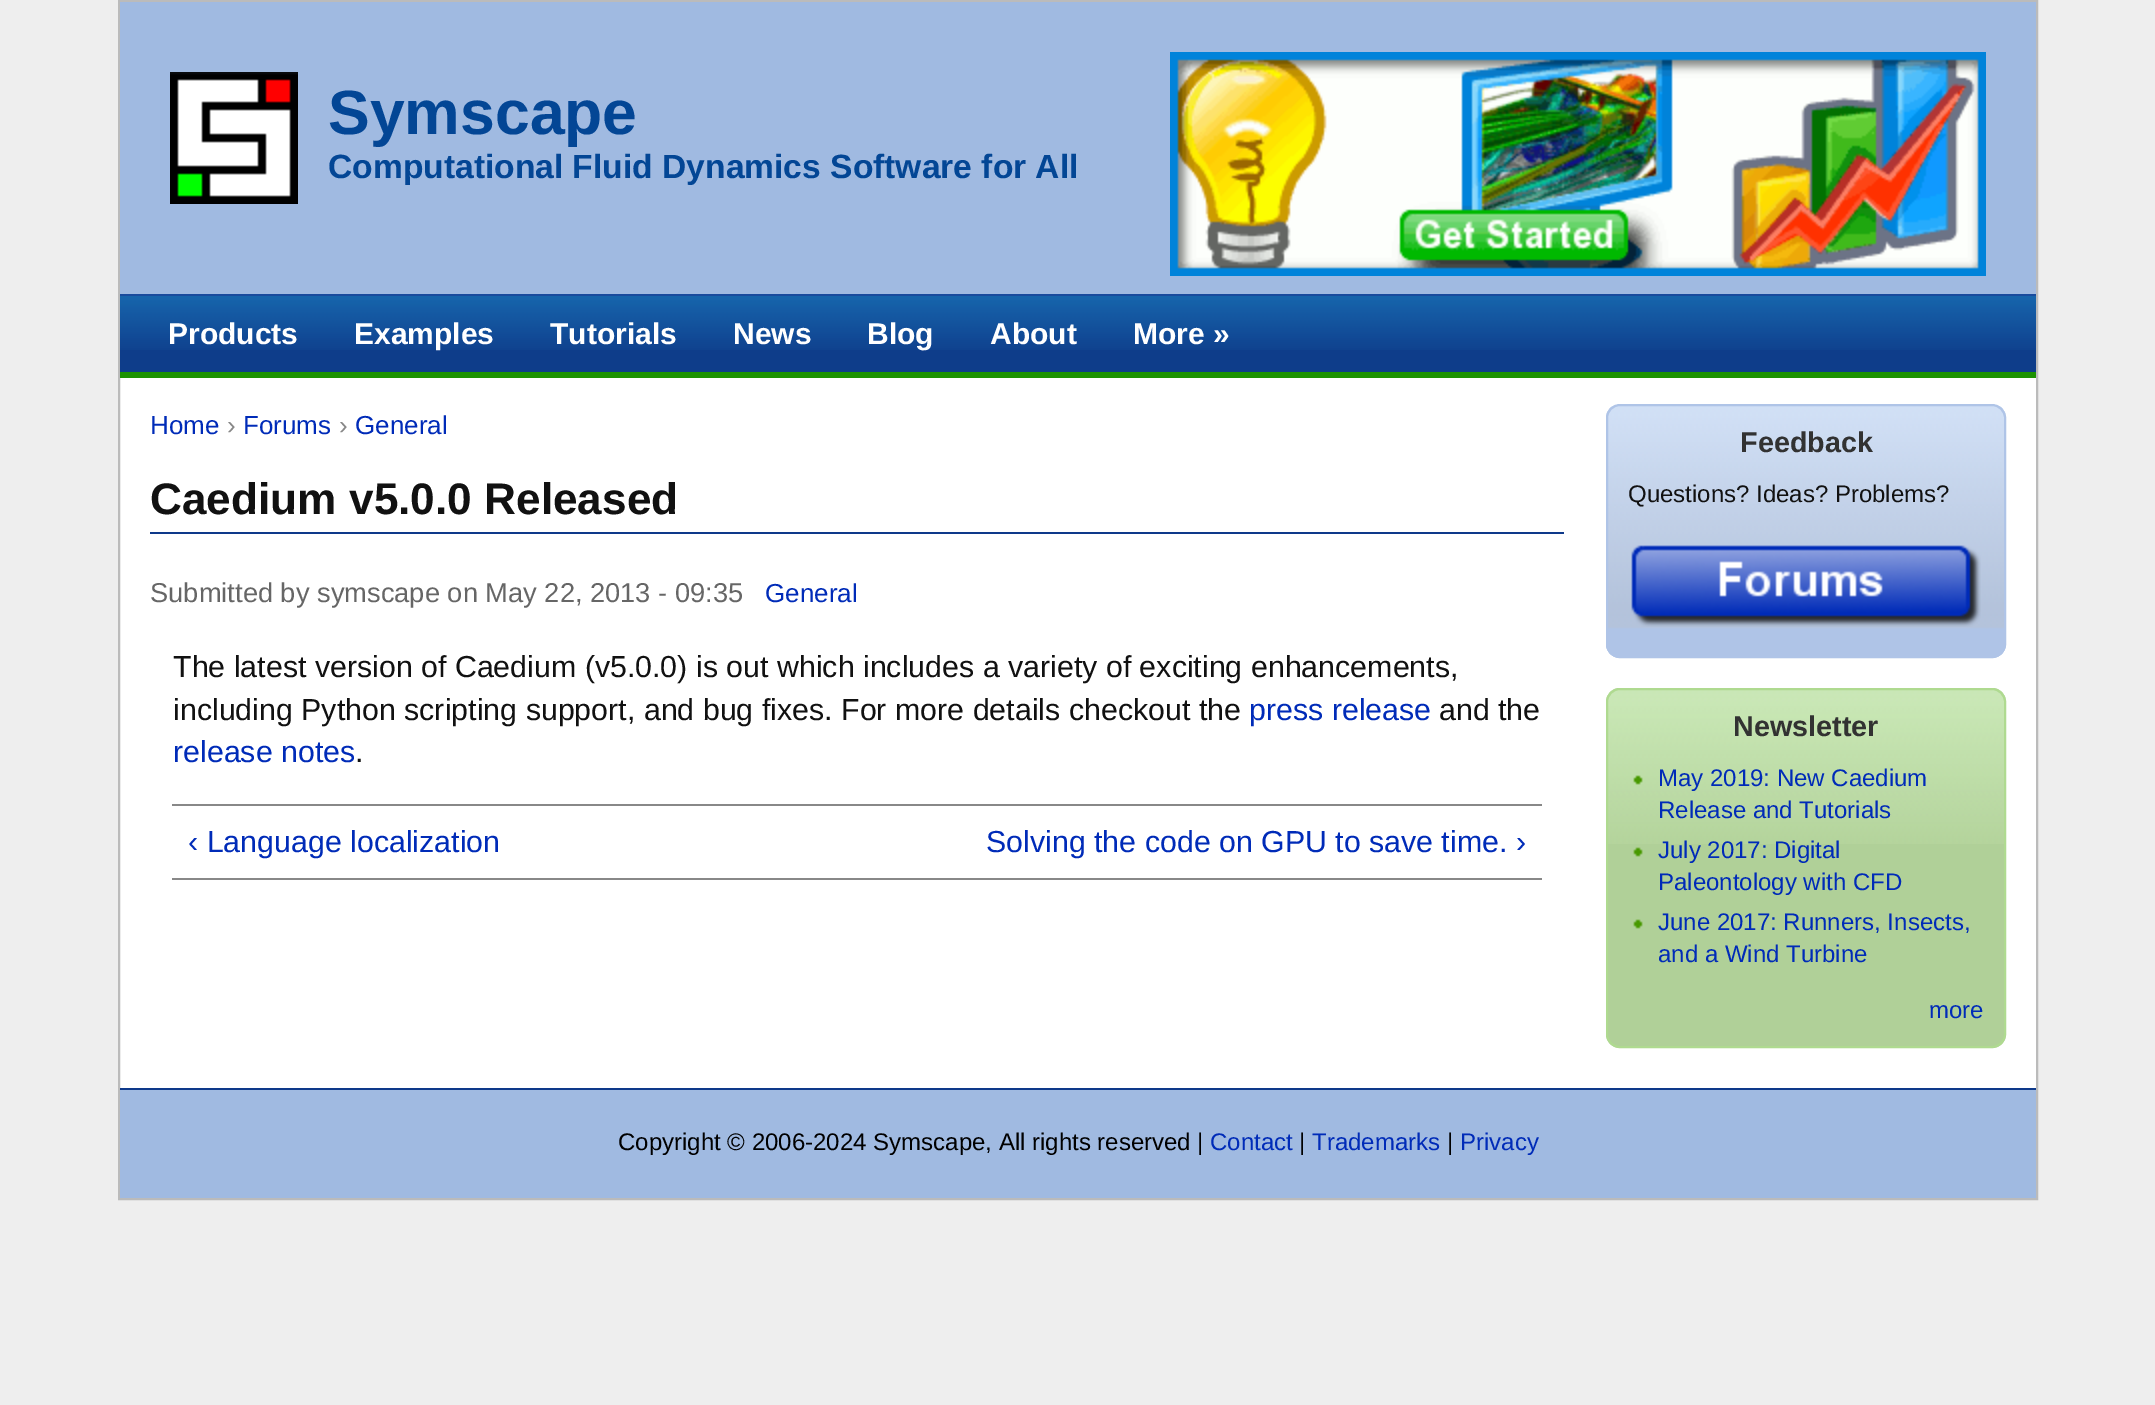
%!PS-Adobe-3.0
%%BoundingBox: 0 0 2155 1405
%%LanguageLevel: 3
%%Pages: 1
%%EndComments
%%BeginProlog
/f { fill } bind def
/S { stroke } bind def
/w { setlinewidth } bind def
/fn { [ exch dup neg 0 0 3 -1 roll 0 0 ] selectfont } def
/tx { moveto show } def
/bx { rectfill } def
/rr { 5 dict begin { /r /h /w /y /x } { exch def } forall
  x r add y moveto x w add y 2 copy h add r arct x w add y h add x 1 index r arct
  x y h add x y r arct x y 2 copy exch w add exch r arct closepath end } def
/im { 5 dict begin { /h /w /y /x /name } { exch def } forall
  gsave x y translate w h scale
  w h 8 [w 0 0 h 0 0] name (r) file false 3 colorimage grestore end } def
%%EndProlog
%%BeginSetup
<< /PageSize [2155 1405] >> setpagedevice
%%EndSetup
%%Page: 1 1
0 1405 translate 1 -1 scale
4 setmiterlimit
0.933 setgray
0 0 2155 1405 bx
1 setgray
120 378 1916 710 bx
0.733 setgray
2 w
119 1 1918 1198 rectstroke
0.627 0.729 0.882 setrgbcolor
120 2 1916 292 bx
(image0.raw) 170 72 128 132 im
/LiberationSans-Bold 62.5 fn
0.012 0.275 0.584 setrgbcolor
(Symscape) 328 134 tx
/LiberationSans-Bold 33.6 fn
(Computational Fluid Dynamics Software for All) 328 178 tx
(image1.raw) 1170 52 816 224 im
0.055 0.239 0.541 setrgbcolor
120 350 1916 22 bx
(image2.raw) 120 296 1916 54 im
0.098 0.294 0.616 setrgbcolor
120 294 1916 2 bx
0.11 0.573 0.004 setrgbcolor
120 372 1916 6 bx
/LiberationSans-Bold 30 fn
1 setgray
(Products) 168 344 tx
(Examples) 354 344 tx
(Tutorials) 550 344 tx
(News) 733 344 tx
(Blog) 867 344 tx
(About) 990 344 tx
(More ») 1133 344 tx
/LiberationSans-Regular 26 fn
0 0.169 0.722 setrgbcolor
(Home) 150 434 tx
0.533 setgray
(›) 227 434 tx
0 0.169 0.722 setrgbcolor
(Forums) 243 434 tx
0.533 setgray
(›) 339 434 tx
0 0.169 0.722 setrgbcolor
(General) 355 434 tx
0.055 0.224 0.541 setrgbcolor
150 532 1414 2 bx
/LiberationSans-Bold 44.2 fn
0.067 setgray
(Caedium v5.0.0 Released) 150 514 tx
/LiberationSans-Regular 27.3 fn
0.4 setgray
(Submitted by symscape on May 22, 2013 - 09:35) 150 602 tx
/LiberationSans-Regular 26 fn
0 0.169 0.722 setrgbcolor
(General) 765 602 tx
/LiberationSans-Regular 30.35 fn
0.067 setgray
(The latest version of Caedium \(v5.0.0\) is out which includes a variety of exciting enhancements,) 173 677 tx
(including Python scripting support, and bug fixes. For more details checkout the) 173 720 tx
0 0.169 0.722 setrgbcolor
(press release) 1249 720 tx
0.067 setgray
(and the) 1439 720 tx
0 0.169 0.722 setrgbcolor
(release notes) 173 762 tx
0.067 setgray
(.) 355 762 tx
0.533 setgray
172 804 1370 2 bx
172 878 1370 2 bx
0 0.169 0.722 setrgbcolor
(‹ Language localization) 188 852 tx
(Solving the code on GPU to save time. ›) 986 852 tx
(image3.raw) 1606 406 400 252 im
0.686 0.769 0.906 setrgbcolor
1607 405 398 252 13 rr S
/LiberationSans-Bold 28.75 fn
0.196 setgray
(Feedback) 1740 452 tx
/LiberationSans-Regular 24 fn
0.067 setgray
(Questions? Ideas? Problems?) 1628 502 tx
(image4.raw) 1631 545 350 82 im
0.69 0.816 0.596 setrgbcolor
1606 688 400 360 14 rr f
(image5.raw) 1606 690 400 154 im
0.686 0.855 0.565 setrgbcolor
1607 689 398 358 13 rr S
/LiberationSans-Bold 28.75 fn
0.196 setgray
(Newsletter) 1733 736 tx
(image6.raw) 1633 775 10 10 im
/LiberationSans-Regular 24 fn
0 0.169 0.722 setrgbcolor
(May 2019: New Caedium) 1658 786 tx
(Release and Tutorials) 1658 818 tx
(image7.raw) 1633 847 10 10 im
(July 2017: Digital) 1658 858 tx
(Paleontology with CFD) 1658 890 tx
(image7.raw) 1633 919 10 10 im
(June 2017: Runners, Insects,) 1658 930 tx
(and a Wind Turbine) 1658 962 tx
(more) 1929 1018 tx
0.627 0.729 0.882 setrgbcolor
120 1090 1916 108 bx
0.055 0.224 0.541 setrgbcolor
120 1088 1916 2 bx
0 setgray
(Copyright © 2006-2024 Symscape, All rights reserved |) 618 1150 tx
0 0.169 0.722 setrgbcolor
(Contact) 1210 1150 tx
0 setgray
(|) 1299 1150 tx
0 0.169 0.722 setrgbcolor
(Trademarks) 1312 1150 tx
0 setgray
(|) 1447 1150 tx
0 0.169 0.722 setrgbcolor
(Privacy) 1460 1150 tx
showpage
%%EOF
